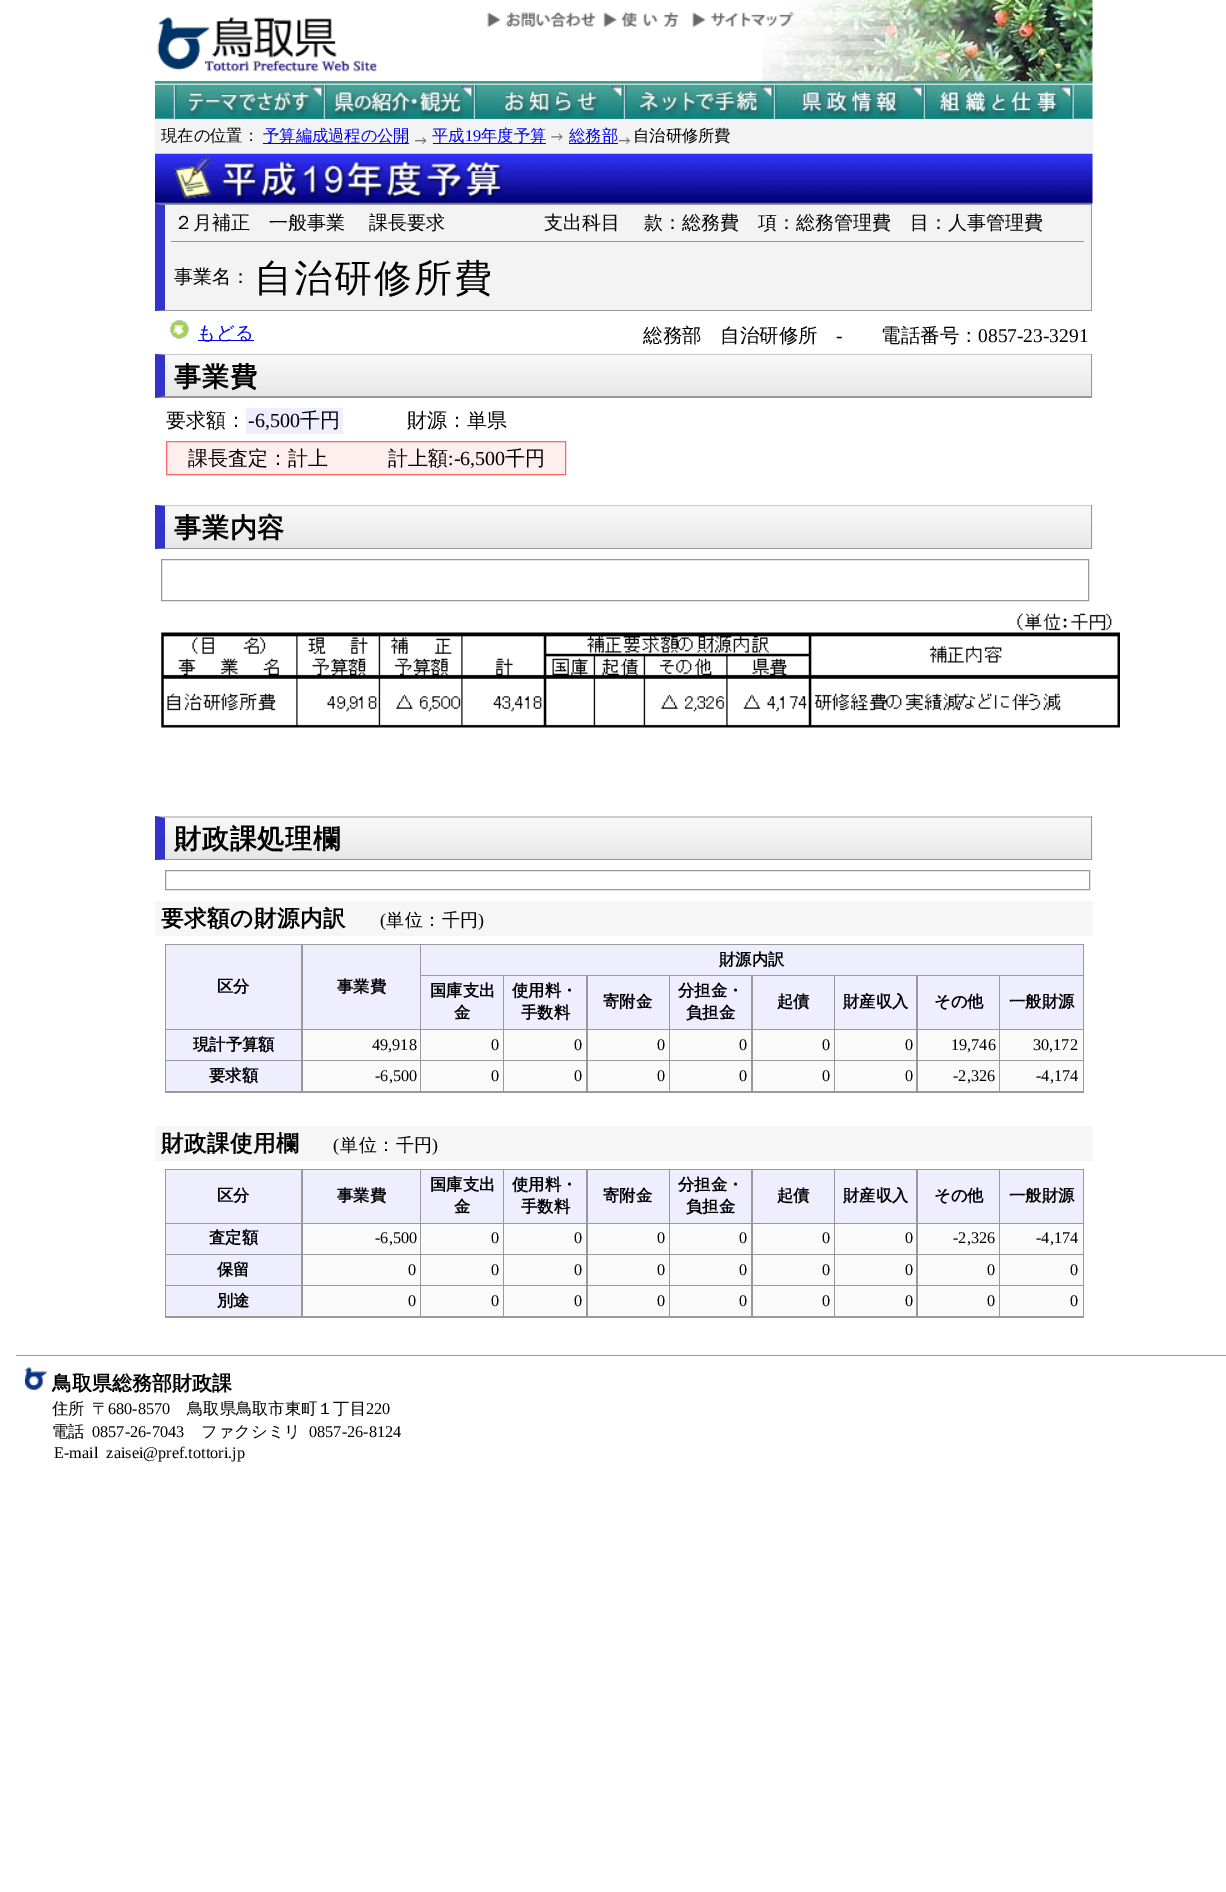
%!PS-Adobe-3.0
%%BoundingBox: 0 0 1226 1892
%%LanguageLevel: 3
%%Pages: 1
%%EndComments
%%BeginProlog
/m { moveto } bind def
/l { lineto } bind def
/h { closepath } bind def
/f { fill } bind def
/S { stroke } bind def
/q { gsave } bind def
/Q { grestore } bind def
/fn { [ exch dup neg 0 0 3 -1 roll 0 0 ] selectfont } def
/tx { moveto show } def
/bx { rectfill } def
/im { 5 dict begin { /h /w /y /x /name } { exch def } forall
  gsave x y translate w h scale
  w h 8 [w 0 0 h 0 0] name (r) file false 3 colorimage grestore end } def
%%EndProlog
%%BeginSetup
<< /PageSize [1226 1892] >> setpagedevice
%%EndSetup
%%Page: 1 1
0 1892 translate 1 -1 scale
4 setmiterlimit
1 setgray
0 0 1226 1892 bx
(image0.raw) 762 0 331 82 im
(image1.raw) 157 17 220 55 im
(image2.raw) 487 12 109 16 im
(image3.raw) 603 12 76 16 im
(image4.raw) 692 11 102 17 im
(image5.raw) 155 81 938 4 im
(image6.raw) 155 85 938 34 im
(image7.raw) 173 85 151 34 im
(image8.raw) 323 85 151 34 im
(image9.raw) 473 85 151 34 im
(image10.raw) 623 85 151 34 im
(image11.raw) 773 85 151 34 im
(image12.raw) 923 85 151 34 im
0.953 setgray
155 119 938 85 bx
/WenQuanYiZenHei-Medium 16.25 fn
0 setgray
(現在の位置：) 161 141 tx
0 0 0.933 setrgbcolor
263 143 146 1 bx
(予算編成過程の公開) 263 141 tx
(image13.raw) 414 137 13 7 im
(平成) 432 141 tx
/LiberationSerif-Regular 16.25 fn
(19) 465 141 tx
433 143 113 1 bx
/WenQuanYiZenHei-Medium 16.25 fn
(年度予算) 481 141 tx
(image14.raw) 551 133 12 8 im
569 143 49 1 bx
(総務部) 569 141 tx
(image15.raw) 618 137 13 7 im
0 setgray
(自治研修所費) 633 141 tx
(image16.raw) 155 153 938 51 im
0.953 setgray
165 205 926 105 bx
0.6 setgray
155 204 m 1092 204 l 1091 205 l 165 205 l h f
1091 204 1 107 bx
1092 311 m 155 311 l 165 310 l 1091 310 l h f
0.2 0.2 0.8 setrgbcolor
155 311 m 155 204 l 165 205 l 165 310 l h f
0.6 setgray
171 241 913 1 bx
/WenQuanYiZenHei-Medium 19 fn
0 setgray
(２月補正　一般事業) 174 229 tx
(課長要求) 369 229 tx
544 229 m -1 0 32 (支出科目　 款：総務費　項：総務管理費　目：人事管理費) widthshow
(事業名：) 174 283 tx
/WenQuanYiZenHei-Medium 38 fn
254 291 m 2 0 (自治研修所費) ashow
(image17.raw) 170 320 19 19 im
0 0 0.933 setrgbcolor
198 340 56 1 bx
/WenQuanYiZenHei-Medium 18.5 fn
(もどる) 197 339 tx
/WenQuanYiZenHei-Medium 19.5 fn
0 setgray
(総務部) 643 342 tx
(自治研修所) 720 342 tx
/LiberationSerif-Regular 19.5 fn
(-) 836 342 tx
/WenQuanYiZenHei-Medium 19.5 fn
(電話番号：) 881 342 tx
/LiberationSerif-Regular 19.5 fn
(0857-23-3291) 978 342 tx
(image18.raw) 155 353 938 45 im
0.8 setgray
155 354 m 1092 354 l 1091 355 l 165 355 l h f
0.6 setgray
1091 354 1 44 bx
1092 398 m 155 398 l 165 396 l 1091 396 l h f
0.2 0.2 0.8 setrgbcolor
155 398 m 155 354 l 165 355 l 165 396 l h f
/WenQuanYiZenHei-Bold 27 fn
0 setgray
174 386 m 0.75 0 (事業費) ashow
/WenQuanYiZenHei-Medium 20 fn
(要求額：) 166 427 tx
0.933 0.933 1 setrgbcolor
246 408 97 26 bx
/LiberationSerif-Regular 20 fn
0 setgray
(-6,500) 248 427 tx
/WenQuanYiZenHei-Medium 20 fn
(千円) 300 427 tx
(財源：単県) 407 427 tx
1 0.933 0.933 setrgbcolor
166.5 441.5 m 565.5 441.5 l 565.5 474.5 l 166.5 474.5 l h q f Q
1 0.4 0.4 setrgbcolor
S
0 setgray
(課長査定：計上　　　計上額) 188 465 tx
/LiberationSerif-Regular 20 fn
(:-6,500) 448 465 tx
/WenQuanYiZenHei-Medium 20 fn
(千円) 505 465 tx
(image19.raw) 155 505 938 44 im
0.8 setgray
155 505 m 1092 505 l 1091 506 l 165 506 l h f
0.6 setgray
1091 505 1 44 bx
1092 549 m 155 549 l 165 548 l 1091 548 l h f
0.2 0.2 0.8 setrgbcolor
155 549 m 155 505 l 165 506 l 165 548 l h f
/WenQuanYiZenHei-Bold 27 fn
0 setgray
174 537 m 0.75 0 (事業内容) ashow
0.6 setgray
161.5 559.5 927 41 rectstroke
(image20.raw) 161 613 959 115 im
(image21.raw) 155 816 938 44 im
0.8 setgray
155 816 m 1092 816 l 1091 818 l 165 818 l h f
0.6 setgray
1091 816 1 44 bx
1092 860 m 155 860 l 165 859 l 1091 859 l h f
0.2 0.2 0.8 setrgbcolor
155 860 m 155 816 l 165 818 l 165 859 l h f
0 setgray
174 848 m 0.75 0 (財政課処理欄) ashow
0.6 setgray
165.5 870.5 924 19 rectstroke
0.965 setgray
155 901 938 35 bx
/WenQuanYiZenHei-Bold 22.5 fn
0 setgray
161 926 m 0.5 0 (要求額の財源内訳) ashow
/LiberationSerif-Regular 18 fn
380 926 m 0.5 0 (\() ashow
/WenQuanYiZenHei-Medium 18 fn
386 926 m 0.5 0 (単位：千円) ashow
/LiberationSerif-Regular 18 fn
478 926 m 0.5 0 (\)) ashow
0.6 setgray
165 944 919 149 bx
0.933 0.933 1 setrgbcolor
421 945 662 30 bx
/WenQuanYiZenHei-Bold 16.25 fn
0 setgray
(財源内訳) 719 965 tx
0.933 0.933 1 setrgbcolor
166 945 135 84 bx
0 setgray
(区分) 217 992 tx
0.933 0.933 1 setrgbcolor
303 945 117 84 bx
0 setgray
(事業費) 337 992 tx
0.933 0.933 1 setrgbcolor
421 976 82 53 bx
0 setgray
(国庫支出) 430 996 tx
(金) 454 1018 tx
0.933 0.933 1 setrgbcolor
504 976 82 53 bx
0 setgray
(使用料・) 512 996 tx
(手数料) 521 1018 tx
0.933 0.933 1 setrgbcolor
588 976 81 53 bx
0 setgray
(寄附金) 603 1007 tx
0.933 0.933 1 setrgbcolor
670 976 81 53 bx
0 setgray
(分担金・) 678 996 tx
(負担金) 686 1018 tx
0.933 0.933 1 setrgbcolor
753 976 81 53 bx
0 setgray
(起債) 777 1007 tx
0.933 0.933 1 setrgbcolor
835 976 81 53 bx
0 setgray
(財産収入) 843 1007 tx
0.933 0.933 1 setrgbcolor
918 976 81 53 bx
0 setgray
(その他) 934 1007 tx
0.933 0.933 1 setrgbcolor
1000 976 83 53 bx
0 setgray
(一般財源) 1009 1007 tx
0.933 0.933 1 setrgbcolor
166 1030 135 30 bx
0 setgray
(現計予算額) 193 1050 tx
0.98 setgray
303 1030 117 30 bx
/LiberationSerif-Regular 16.25 fn
0 setgray
(49,918) 372 1050 tx
0.98 setgray
421 1030 82 30 bx
0 setgray
(0) 491 1050 tx
0.98 setgray
504 1030 82 30 bx
0 setgray
(0) 574 1050 tx
0.98 setgray
588 1030 81 30 bx
0 setgray
(0) 657 1050 tx
0.98 setgray
670 1030 81 30 bx
0 setgray
(0) 739 1050 tx
0.98 setgray
753 1030 81 30 bx
0 setgray
(0) 822 1050 tx
0.98 setgray
835 1030 81 30 bx
0 setgray
(0) 905 1050 tx
0.98 setgray
918 1030 81 30 bx
0 setgray
(19,746) 951 1050 tx
0.98 setgray
1000 1030 83 30 bx
0 setgray
(30,172) 1033 1050 tx
0.933 0.933 1 setrgbcolor
166 1061 135 30 bx
/WenQuanYiZenHei-Bold 16.25 fn
0 setgray
(要求額) 209 1081 tx
0.98 setgray
303 1061 117 30 bx
/LiberationSerif-Regular 16.25 fn
0 setgray
(-6,500) 375 1081 tx
0.98 setgray
421 1061 82 30 bx
0 setgray
(0) 491 1081 tx
0.98 setgray
504 1061 82 30 bx
0 setgray
(0) 574 1081 tx
0.98 setgray
588 1061 81 30 bx
0 setgray
(0) 657 1081 tx
0.98 setgray
670 1061 81 30 bx
0 setgray
(0) 739 1081 tx
0.98 setgray
753 1061 81 30 bx
0 setgray
(0) 822 1081 tx
0.98 setgray
835 1061 81 30 bx
0 setgray
(0) 905 1081 tx
0.98 setgray
918 1061 81 30 bx
0 setgray
(-2,326) 953 1081 tx
0.98 setgray
1000 1061 83 30 bx
0 setgray
(-4,174) 1036 1081 tx
0.965 setgray
155 1126 938 35 bx
/WenQuanYiZenHei-Bold 22.5 fn
0 setgray
161 1151 m 0.5 0 (財政課使用欄) ashow
/LiberationSerif-Regular 18 fn
333 1151 m 0.5 0 (\() ashow
/WenQuanYiZenHei-Medium 18 fn
340 1151 m 0.5 0 (単位：千円) ashow
/LiberationSerif-Regular 18 fn
432 1151 m 0.5 0 (\)) ashow
0.6 setgray
165 1169 919 149 bx
0.933 0.933 1 setrgbcolor
166 1170 135 53 bx
/WenQuanYiZenHei-Bold 16.25 fn
0 setgray
(区分) 217 1201 tx
0.933 0.933 1 setrgbcolor
303 1170 117 53 bx
0 setgray
(事業費) 337 1201 tx
0.933 0.933 1 setrgbcolor
421 1170 82 53 bx
0 setgray
(国庫支出) 430 1190 tx
(金) 454 1212 tx
0.933 0.933 1 setrgbcolor
504 1170 82 53 bx
0 setgray
(使用料・) 512 1190 tx
(手数料) 521 1212 tx
0.933 0.933 1 setrgbcolor
588 1170 81 53 bx
0 setgray
(寄附金) 603 1201 tx
0.933 0.933 1 setrgbcolor
670 1170 81 53 bx
0 setgray
(分担金・) 678 1190 tx
(負担金) 686 1212 tx
0.933 0.933 1 setrgbcolor
753 1170 81 53 bx
0 setgray
(起債) 777 1201 tx
0.933 0.933 1 setrgbcolor
835 1170 81 53 bx
0 setgray
(財産収入) 843 1201 tx
0.933 0.933 1 setrgbcolor
918 1170 81 53 bx
0 setgray
(その他) 934 1201 tx
0.933 0.933 1 setrgbcolor
1000 1170 83 53 bx
0 setgray
(一般財源) 1009 1201 tx
0.933 0.933 1 setrgbcolor
166 1224 135 30 bx
0 setgray
(査定額) 209 1243 tx
0.98 setgray
303 1224 117 30 bx
/LiberationSerif-Regular 16.25 fn
0 setgray
(-6,500) 375 1243 tx
0.98 setgray
421 1224 82 30 bx
0 setgray
(0) 491 1243 tx
0.98 setgray
504 1224 82 30 bx
0 setgray
(0) 574 1243 tx
0.98 setgray
588 1224 81 30 bx
0 setgray
(0) 657 1243 tx
0.98 setgray
670 1224 81 30 bx
0 setgray
(0) 739 1243 tx
0.98 setgray
753 1224 81 30 bx
0 setgray
(0) 822 1243 tx
0.98 setgray
835 1224 81 30 bx
0 setgray
(0) 905 1243 tx
0.98 setgray
918 1224 81 30 bx
0 setgray
(-2,326) 953 1243 tx
0.98 setgray
1000 1224 83 30 bx
0 setgray
(-4,174) 1036 1243 tx
0.933 0.933 1 setrgbcolor
166 1255 135 30 bx
/WenQuanYiZenHei-Bold 16.25 fn
0 setgray
(保留) 217 1275 tx
0.98 setgray
303 1255 117 30 bx
/LiberationSerif-Regular 16.25 fn
0 setgray
(0) 408 1275 tx
0.98 setgray
421 1255 82 30 bx
0 setgray
(0) 491 1275 tx
0.98 setgray
504 1255 82 30 bx
0 setgray
(0) 574 1275 tx
0.98 setgray
588 1255 81 30 bx
0 setgray
(0) 657 1275 tx
0.98 setgray
670 1255 81 30 bx
0 setgray
(0) 739 1275 tx
0.98 setgray
753 1255 81 30 bx
0 setgray
(0) 822 1275 tx
0.98 setgray
835 1255 81 30 bx
0 setgray
(0) 905 1275 tx
0.98 setgray
918 1255 81 30 bx
0 setgray
(0) 987 1275 tx
0.98 setgray
1000 1255 83 30 bx
0 setgray
(0) 1070 1275 tx
0.933 0.933 1 setrgbcolor
166 1286 135 30 bx
/WenQuanYiZenHei-Bold 16.25 fn
0 setgray
(別途) 217 1306 tx
0.98 setgray
303 1286 117 30 bx
/LiberationSerif-Regular 16.25 fn
0 setgray
(0) 408 1306 tx
0.98 setgray
421 1286 82 30 bx
0 setgray
(0) 491 1306 tx
0.98 setgray
504 1286 82 30 bx
0 setgray
(0) 574 1306 tx
0.98 setgray
588 1286 81 30 bx
0 setgray
(0) 657 1306 tx
0.98 setgray
670 1286 81 30 bx
0 setgray
(0) 739 1306 tx
0.98 setgray
753 1286 81 30 bx
0 setgray
(0) 822 1306 tx
0.98 setgray
835 1286 81 30 bx
0 setgray
(0) 905 1306 tx
0.98 setgray
918 1286 81 30 bx
0 setgray
(0) 987 1306 tx
0.98 setgray
1000 1286 83 30 bx
0 setgray
(0) 1070 1306 tx
0.624 setgray
16 1355 1210 1 bx
(image22.raw) 25 1367 23 23 im
/WenQuanYiZenHei-Bold 20 fn
0 setgray
(鳥取県総務部財政課) 52 1390 tx
/WenQuanYiZenHei-Medium 16.25 fn
(住所) 52 1414 tx
(〒) 92 1414 tx
/LiberationSerif-Regular 16.25 fn
(680-8570) 108 1414 tx
/WenQuanYiZenHei-Medium 16.25 fn
(鳥取県鳥取市東町１丁目) 187 1414 tx
/LiberationSerif-Regular 16.25 fn
(220) 366 1414 tx
/WenQuanYiZenHei-Medium 16.25 fn
(電話) 52 1437 tx
/LiberationSerif-Regular 16.25 fn
(0857-26-7043) 92 1437 tx
/WenQuanYiZenHei-Medium 16.25 fn
(ファクシミリ) 201 1437 tx
/LiberationSerif-Regular 16.25 fn
(0857-26-8124) 309 1437 tx
(E-mail  zaisei@pref.tottori.jp) 54 1458 tx
showpage
%%EOF
